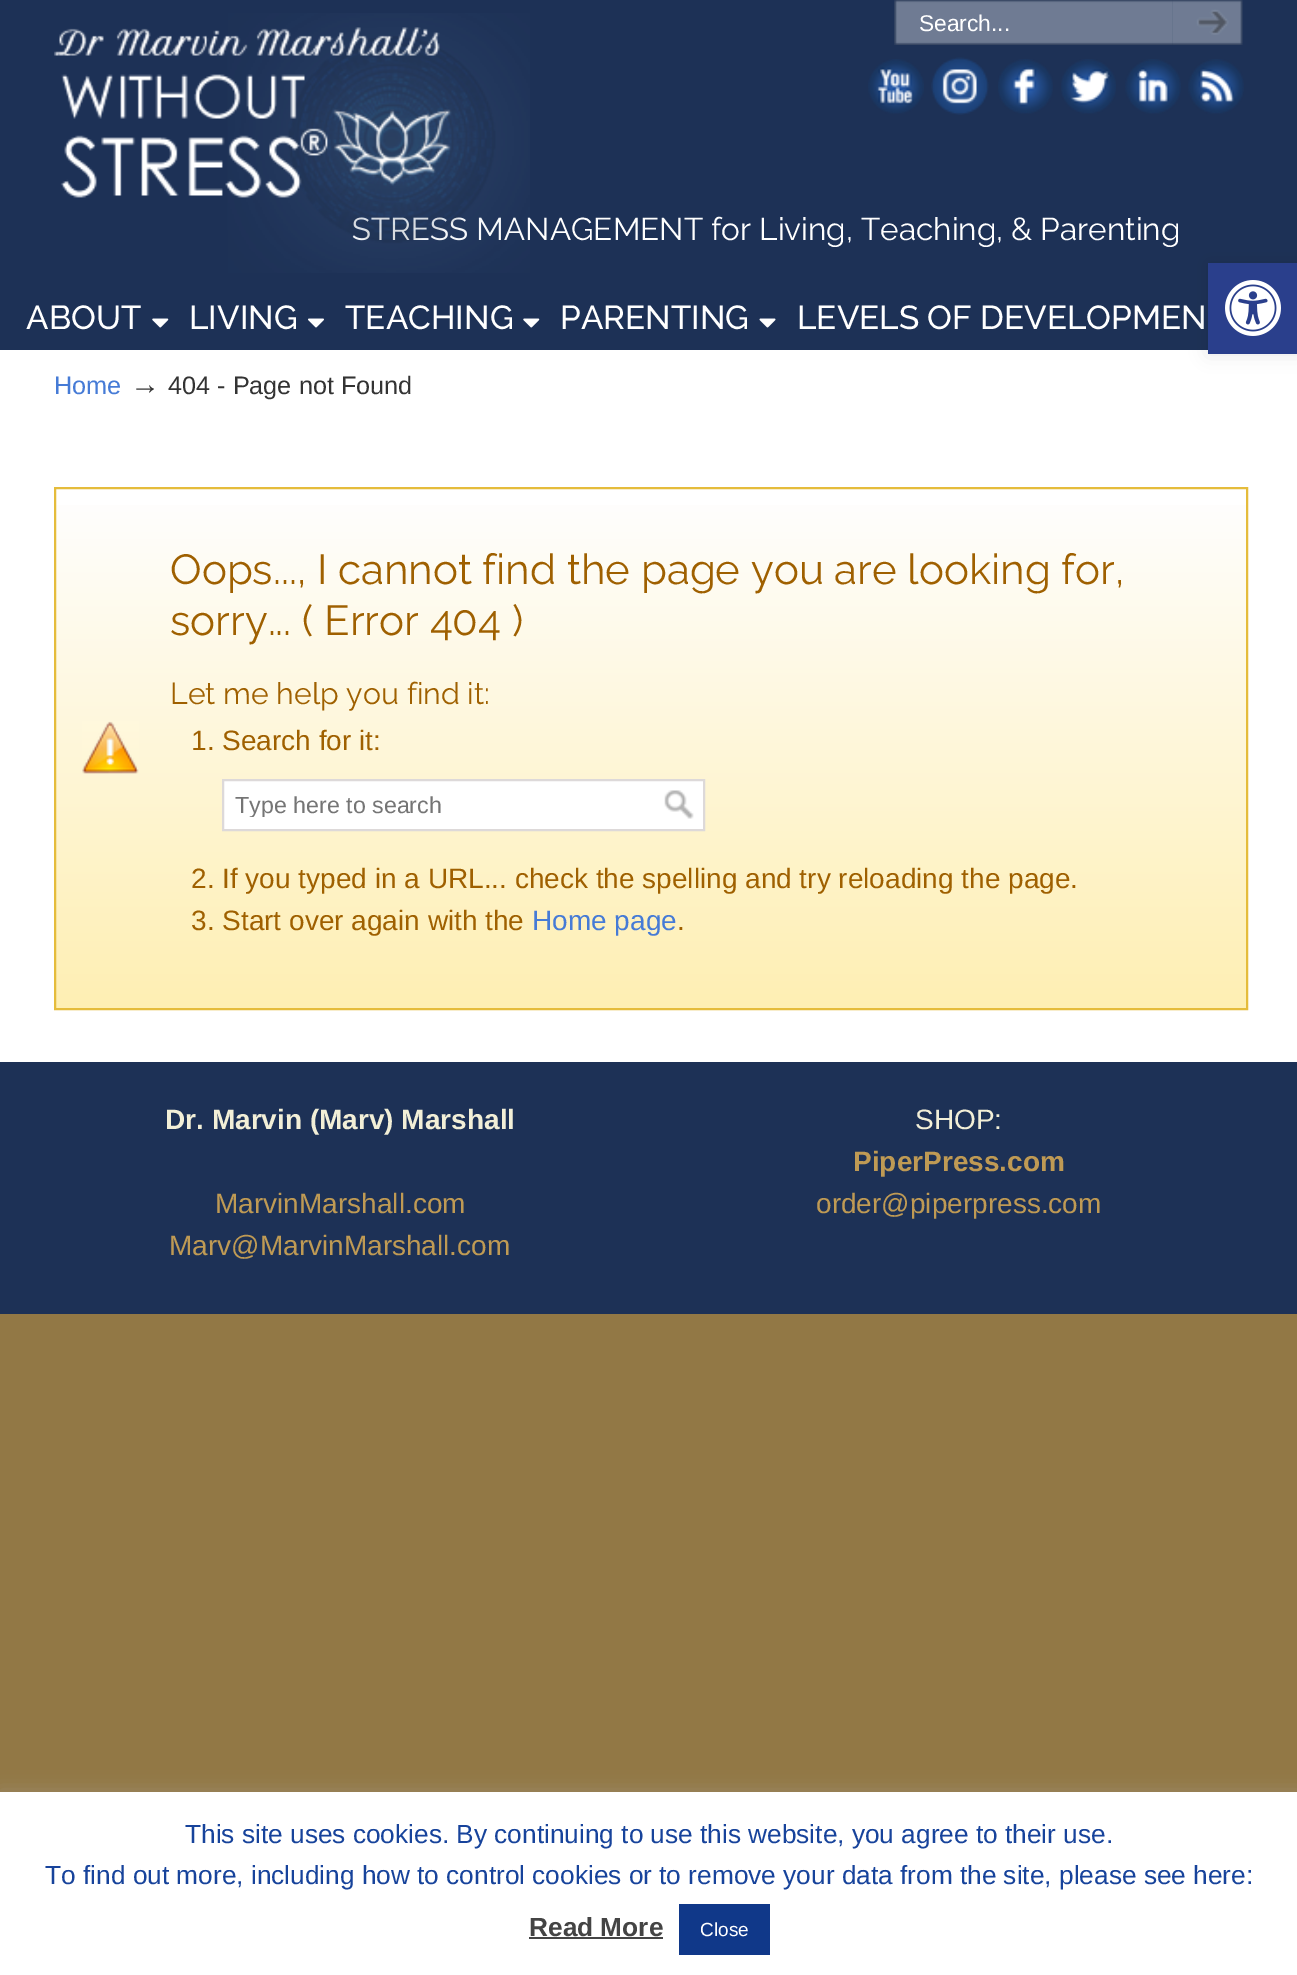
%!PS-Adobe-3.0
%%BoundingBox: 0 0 1297 1975
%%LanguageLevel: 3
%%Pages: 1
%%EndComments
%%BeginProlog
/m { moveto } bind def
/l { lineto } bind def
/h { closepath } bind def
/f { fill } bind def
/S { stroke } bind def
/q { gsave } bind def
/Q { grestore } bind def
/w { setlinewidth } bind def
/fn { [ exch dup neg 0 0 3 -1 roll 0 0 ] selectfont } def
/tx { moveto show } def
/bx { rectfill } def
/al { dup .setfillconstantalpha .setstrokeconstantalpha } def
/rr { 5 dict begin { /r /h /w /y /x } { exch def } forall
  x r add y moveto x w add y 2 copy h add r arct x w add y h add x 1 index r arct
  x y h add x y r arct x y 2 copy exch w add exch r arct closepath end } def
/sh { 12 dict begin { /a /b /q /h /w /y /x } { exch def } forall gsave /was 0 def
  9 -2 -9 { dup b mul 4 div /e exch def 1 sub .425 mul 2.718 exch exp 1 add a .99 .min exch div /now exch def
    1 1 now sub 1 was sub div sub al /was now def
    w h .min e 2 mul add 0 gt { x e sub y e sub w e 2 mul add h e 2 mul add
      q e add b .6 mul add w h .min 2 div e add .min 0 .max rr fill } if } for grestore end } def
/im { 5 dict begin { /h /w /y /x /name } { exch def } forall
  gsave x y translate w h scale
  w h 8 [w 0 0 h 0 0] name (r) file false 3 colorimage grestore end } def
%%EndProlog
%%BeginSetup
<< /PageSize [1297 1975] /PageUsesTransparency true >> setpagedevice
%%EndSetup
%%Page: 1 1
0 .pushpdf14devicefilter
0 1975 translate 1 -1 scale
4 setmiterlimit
0.573 0.471 0.271 setrgbcolor
0 0 1297 1975 bx
0.114 0.192 0.337 setrgbcolor
0 0 1297 350 bx
/Raleway-Regular 31.5 fn
1 setgray
(STRESS MANAGEMENT for Living, Teaching, & Parenting) 352 240 tx
(image0.raw) 54 13 476 260 im
(image1.raw) 894 0 279 45 im
/LiberationSans-Regular 22.75 fn
(Search...) 919 31 tx
(image2.raw) 1172 0 71 45 im
(image3.raw) 868 59 56 55 im
(image4.raw) 931 57 58 58 im
(image5.raw) 998 59 55 55 im
(image6.raw) 1061 59 55 55 im
(image7.raw) 1125 59 56 55 im
(image8.raw) 1188 59 56 55 im
/Raleway-Medium 33.25 fn
(ABOUT) 26 329 tx
(image9.raw) 152 318 17 10 im
(LIVING) 189 329 tx
(image10.raw) 308 318 16 10 im
(TEACHING) 345 329 tx
(image9.raw) 523 318 17 10 im
(PARENTING) 560 329 tx
(image11.raw) 759 318 17 10 im
(LEVELS OF DEVELOPMEN) 797 329 tx
0 350 1297 712 bx
/LiberationSans-Regular 25.25 fn
0.275 0.482 0.839 setrgbcolor
(Home) 54 394 tx
/LiberationSans-Regular 30 fn
0.2 setgray
(→) 130 394 tx
/LiberationSans-Regular 25.25 fn
(404 - Page not Found) 168 394 tx
q 56 505 m 1246 505 l 1246 1008 l 56 1008 l h clip newpath
<< /ShadingType 2 /ColorSpace /DeviceRGB /Coords [651 488 651 1008] /Extend [true true] /Function << /FunctionType 2 /Domain [0 1] /C0 [1 1 1] /C1 [0.996 0.937 0.702] /N 1 >> >> shfill Q
0.898 0.737 0.231 setrgbcolor
2 w
55 488 1192 521 rectstroke
/Raleway-Regular 42 fn
0.624 0.376 0 setrgbcolor
(Oops..., I cannot find the page you are looking for,) 170 584 tx
(sorry... \( Error 404 \)) 170 635 tx
(image12.raw) 82 721 57 53 im
/Raleway-Regular 30.25 fn
(Let me help you find it:) 170 704 tx
/LiberationSans-Regular 28 fn
(1. Search for it:) 191 750 tx
1 setgray
223 780 m 704 780 l 704 830 l 223 830 l h q f Q
0.867 0.851 0.851 setrgbcolor
S
q
235 791 458 26 rectclip
/LiberationSans-Regular 23.25 fn
0.459 setgray
(Type here to search) 235 813 tx
Q
(image13.raw) 664 790 30 29 im
0.624 0.376 0 setrgbcolor
(2. If you typed in a URL... check the spelling and try reloading the page.) 191 888 tx
(3. Start over again with the) 191 930 tx
0.275 0.482 0.839 setrgbcolor
(Home page) 532 930 tx
0.624 0.376 0 setrgbcolor
(.) 677 930 tx
0.114 0.192 0.337 setrgbcolor
0 1062 1297 252 bx
/LiberationSans-Bold 28 fn
0.949 0.937 0.843 setrgbcolor
(Dr. Marvin \(Marv\) Marshall) 165 1129 tx
/LiberationSans-Regular 28 fn
0.749 0.604 0.329 setrgbcolor
(MarvinMarshall.com) 215 1213 tx
(Marv@MarvinMarshall.com) 169 1255 tx
0.949 0.937 0.843 setrgbcolor
(SHOP:) 915 1129 tx
/LiberationSans-Bold 28 fn
0.749 0.604 0.329 setrgbcolor
(PiperPress.com) 853 1171 tx
/LiberationSans-Regular 28 fn
(order@piperpress.com) 816 1213 tx
0 setgray
1208 263 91 91 0 9 0.1 sh
0.165 0.247 0.549 setrgbcolor
1208 263 89 91 bx
(image14.raw) 1225 280 56 56 im
0.675 0.671 0.671 setrgbcolor
0 1790 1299 184 0 9 0.3 sh
1 setgray
0 1792 1297 183 bx
/LiberationSans-Regular 26.25 fn
0.09 0.263 0.608 setrgbcolor
(This site uses cookies. By continuing to use this website, you agree to their use.) 185 1843 tx
(To find out more, including how to control cookies or to remove your data from the site, please see here:) 45 1884 tx
/LiberationSans-Bold 26.25 fn
0.267 setgray
(Read More) 529 1936 tx
529 1937 134 2 bx
0.063 0.22 0.537 setrgbcolor
679 1904 91 51 bx
/LiberationSans-Regular 19 fn
1 setgray
(Close) 700 1936 tx
.poppdf14devicefilter showpage
%%EOF
